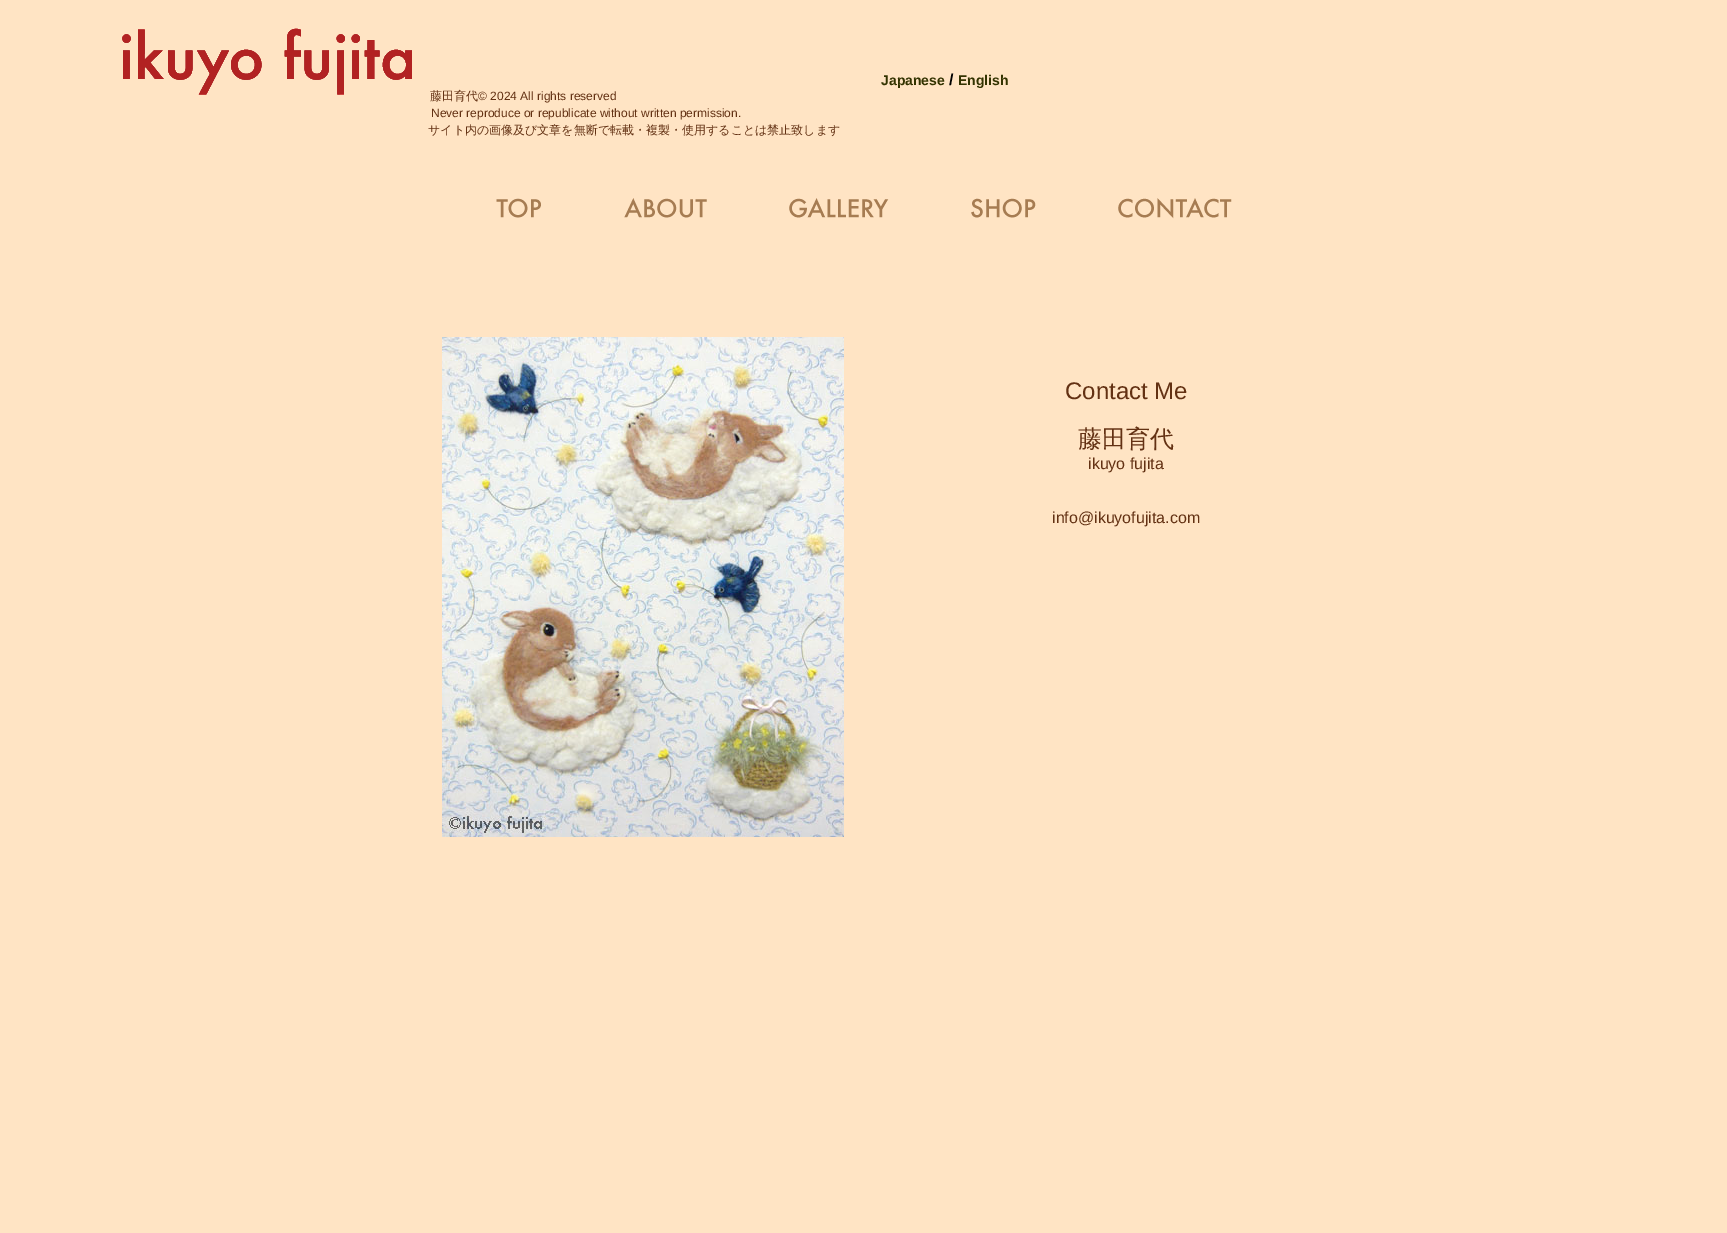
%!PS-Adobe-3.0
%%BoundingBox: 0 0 1727 1233
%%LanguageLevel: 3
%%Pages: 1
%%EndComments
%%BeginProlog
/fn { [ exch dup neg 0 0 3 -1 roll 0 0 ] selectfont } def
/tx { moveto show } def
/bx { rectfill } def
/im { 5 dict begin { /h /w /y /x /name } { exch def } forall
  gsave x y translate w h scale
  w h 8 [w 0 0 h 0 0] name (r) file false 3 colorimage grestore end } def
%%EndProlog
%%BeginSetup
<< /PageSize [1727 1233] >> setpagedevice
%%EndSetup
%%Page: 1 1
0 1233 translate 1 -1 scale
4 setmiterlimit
1 0.894 0.769 setrgbcolor
0 0 1727 1233 bx
/LiberationSans-Bold 14 fn
0.2 0.2 0 setrgbcolor
(Japanese) 881 85 tx
/LiberationSans-Bold 16 fn
0 setgray
(/) 949 85 tx
/LiberationSans-Bold 14 fn
0.2 0.2 0 setrgbcolor
(English) 958 85 tx
(image0.raw) 122 28 290 67 im
/WenQuanYiZenHei-Medium 12 fn
0.388 0.192 0.075 setrgbcolor
(藤田育代) 430 100 tx
/LiberationSans-Regular 12 fn
(© 2024 All rights reserved) 478 100 tx
(Never reproduce or republicate without written permission.) 431 117 tx
/WenQuanYiZenHei-Medium 12 fn
(サイト内の画像及び文章を無断で転載・複製・使用することは禁止致します) 428 134 tx
(image1.raw) 496 198 45 20 im
(image2.raw) 624 198 83 20 im
(image3.raw) 789 198 100 20 im
(image4.raw) 971 198 65 20 im
(image5.raw) 1118 198 114 21 im
(image6.raw) 442 337 402 500 im
/LiberationSans-Regular 24 fn
(Contact Me) 1065 399 tx
/WenQuanYiZenHei-Medium 24 fn
(藤田育代) 1078 447 tx
/LiberationSans-Regular 16 fn
(ikuyo fujita) 1088 469 tx
(info@ikuyofujita.com) 1052 523 tx
showpage
%%EOF
